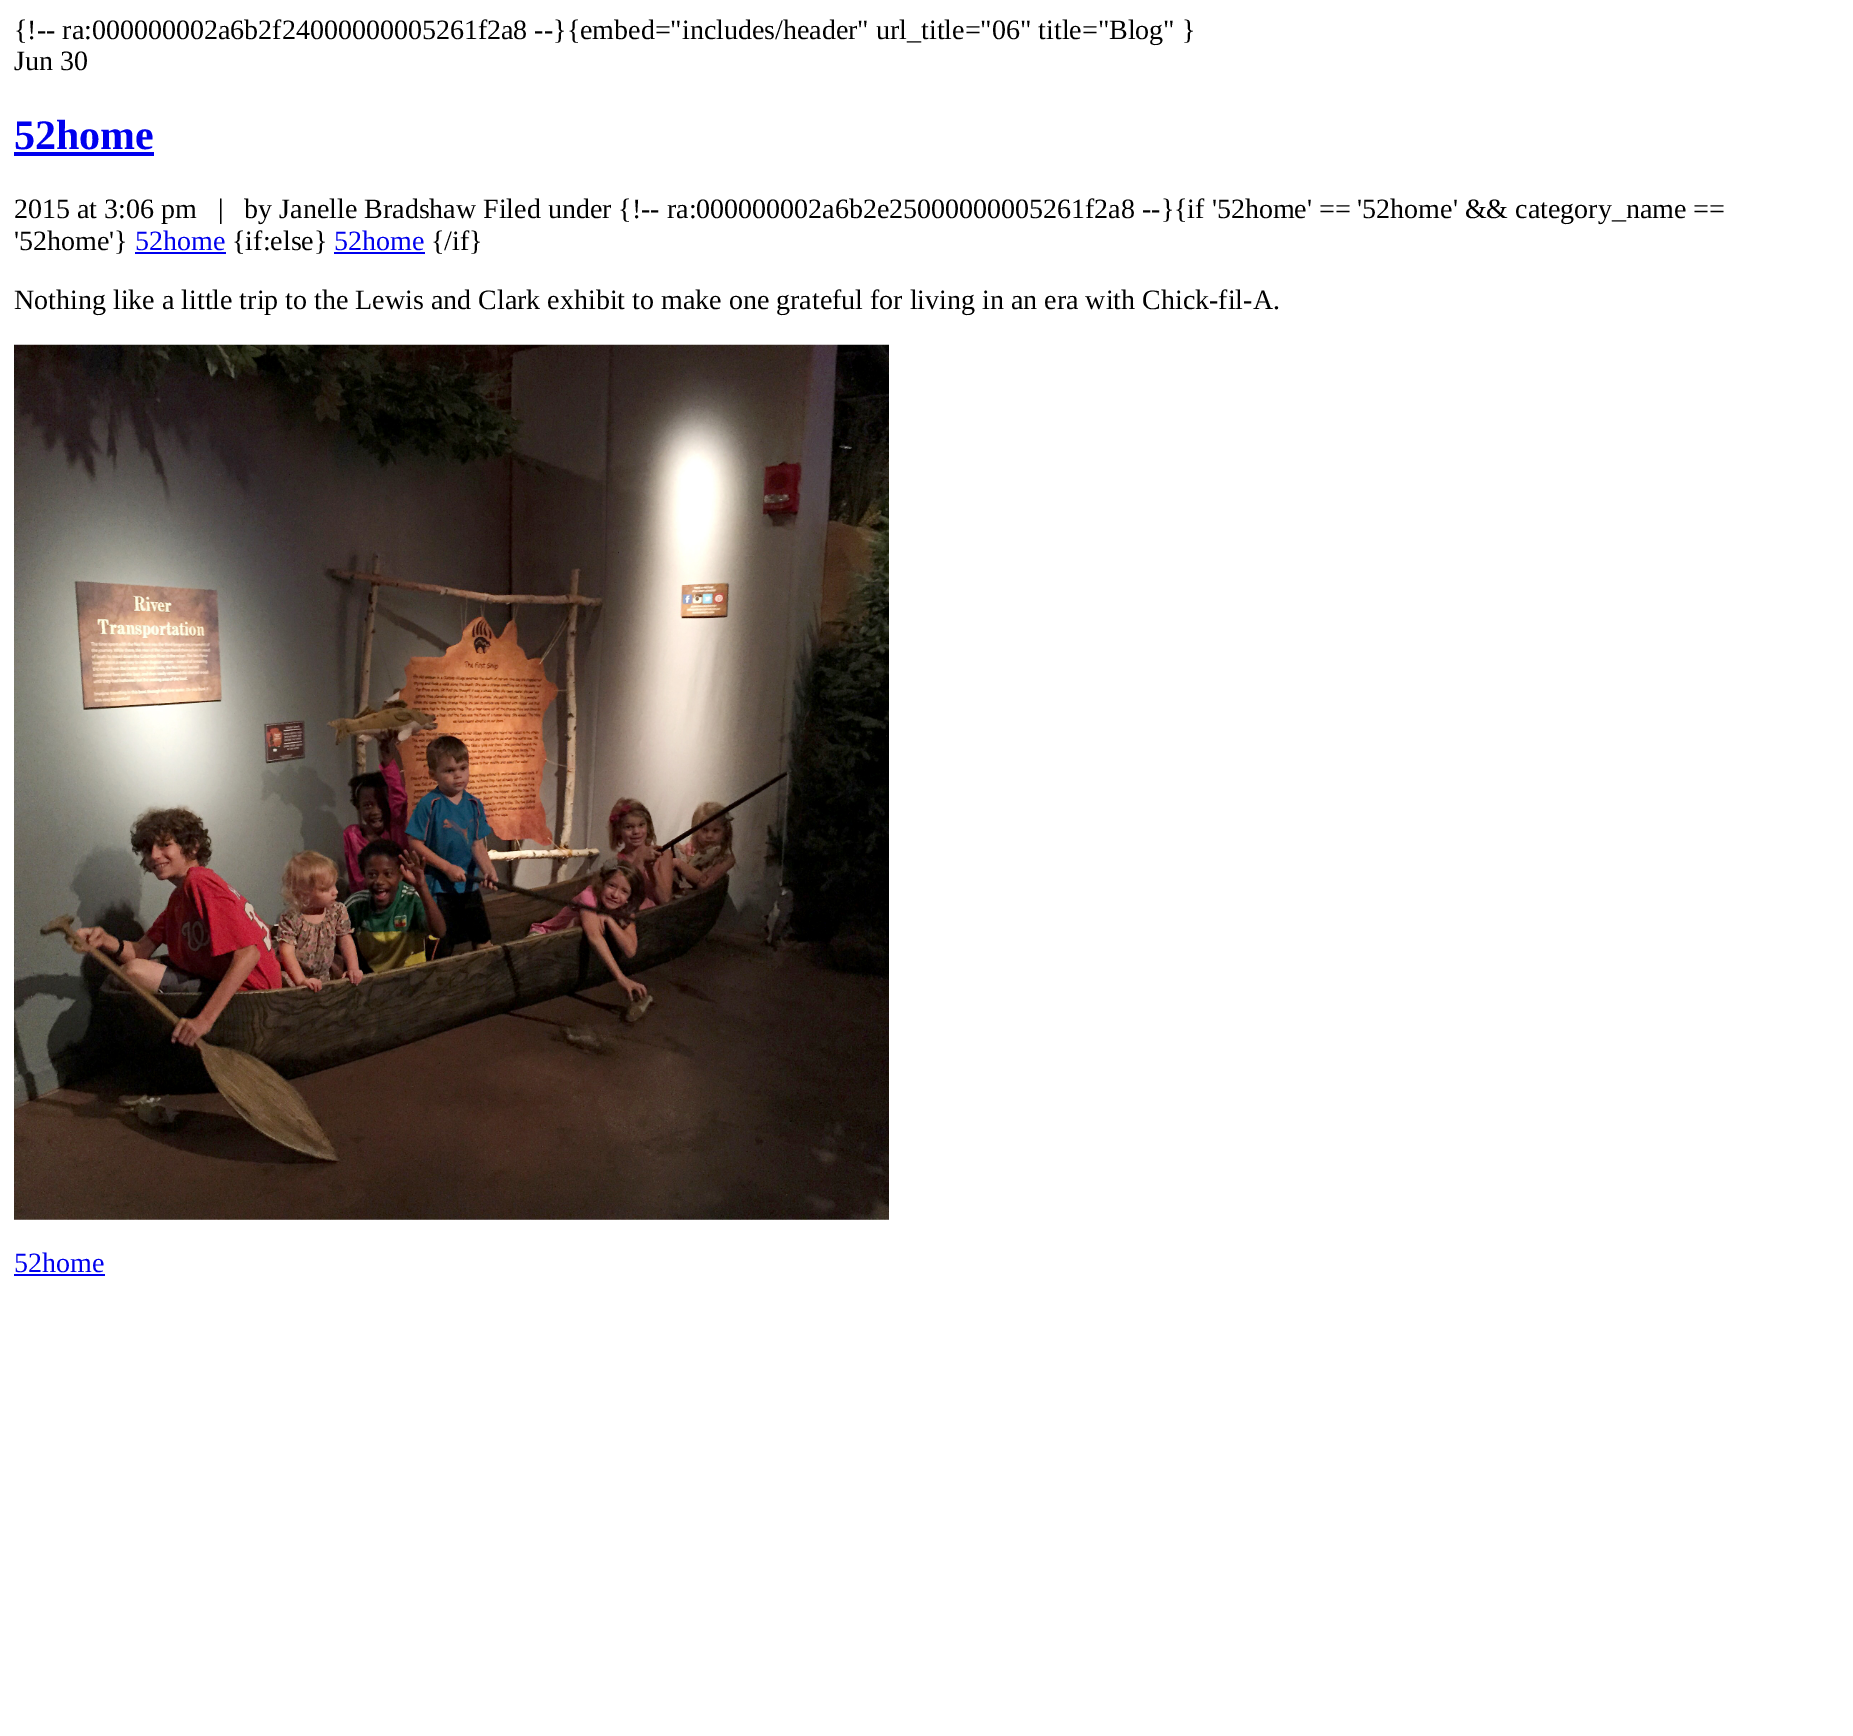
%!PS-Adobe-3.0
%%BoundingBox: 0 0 1853 1736
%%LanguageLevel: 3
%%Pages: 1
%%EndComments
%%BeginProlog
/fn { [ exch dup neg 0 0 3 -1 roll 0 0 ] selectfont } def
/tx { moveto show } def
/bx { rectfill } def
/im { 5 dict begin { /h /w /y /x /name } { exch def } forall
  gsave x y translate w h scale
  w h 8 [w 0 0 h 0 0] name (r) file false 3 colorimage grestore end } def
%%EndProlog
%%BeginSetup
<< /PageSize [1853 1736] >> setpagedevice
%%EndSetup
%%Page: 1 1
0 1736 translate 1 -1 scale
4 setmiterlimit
1 setgray
0 0 1853 1736 bx
/LiberationSerif-Regular 28 fn
0 setgray
({!-- ra:000000002a6b2f24000000005261f2a8 --}{embed="includes/header" url_title="06" title="Blog" }) 14 39 tx
(Jun 30) 14 70 tx
/LiberationSerif-Bold 42 fn
0 0 0.933 setrgbcolor
(52home) 14 149 tx
14 152 140 4 bx
/LiberationSerif-Regular 28 fn
0 setgray
(2015 at 3:06 pm   |   by Janelle Bradshaw Filed under {!-- ra:000000002a6b2e25000000005261f2a8 --}{if '52home' == '52home' && category_name ==) 14 218 tx
('52home'}) 14 250 tx
0 0 0.933 setrgbcolor
(52home) 135 250 tx
135 252 91 2 bx
0 setgray
({if:else}) 232 250 tx
0 0 0.933 setrgbcolor
(52home) 334 250 tx
334 252 91 2 bx
0 setgray
({/if}) 431 250 tx
(Nothing like a little trip to the Lewis and Clark exhibit to make one grateful for living in an era with Chick-fil-A.) 14 309 tx
(image0.raw) 14 344 875 876 im
0 0 0.933 setrgbcolor
(52home) 14 1272 tx
14 1274 91 2 bx
showpage
%%EOF
